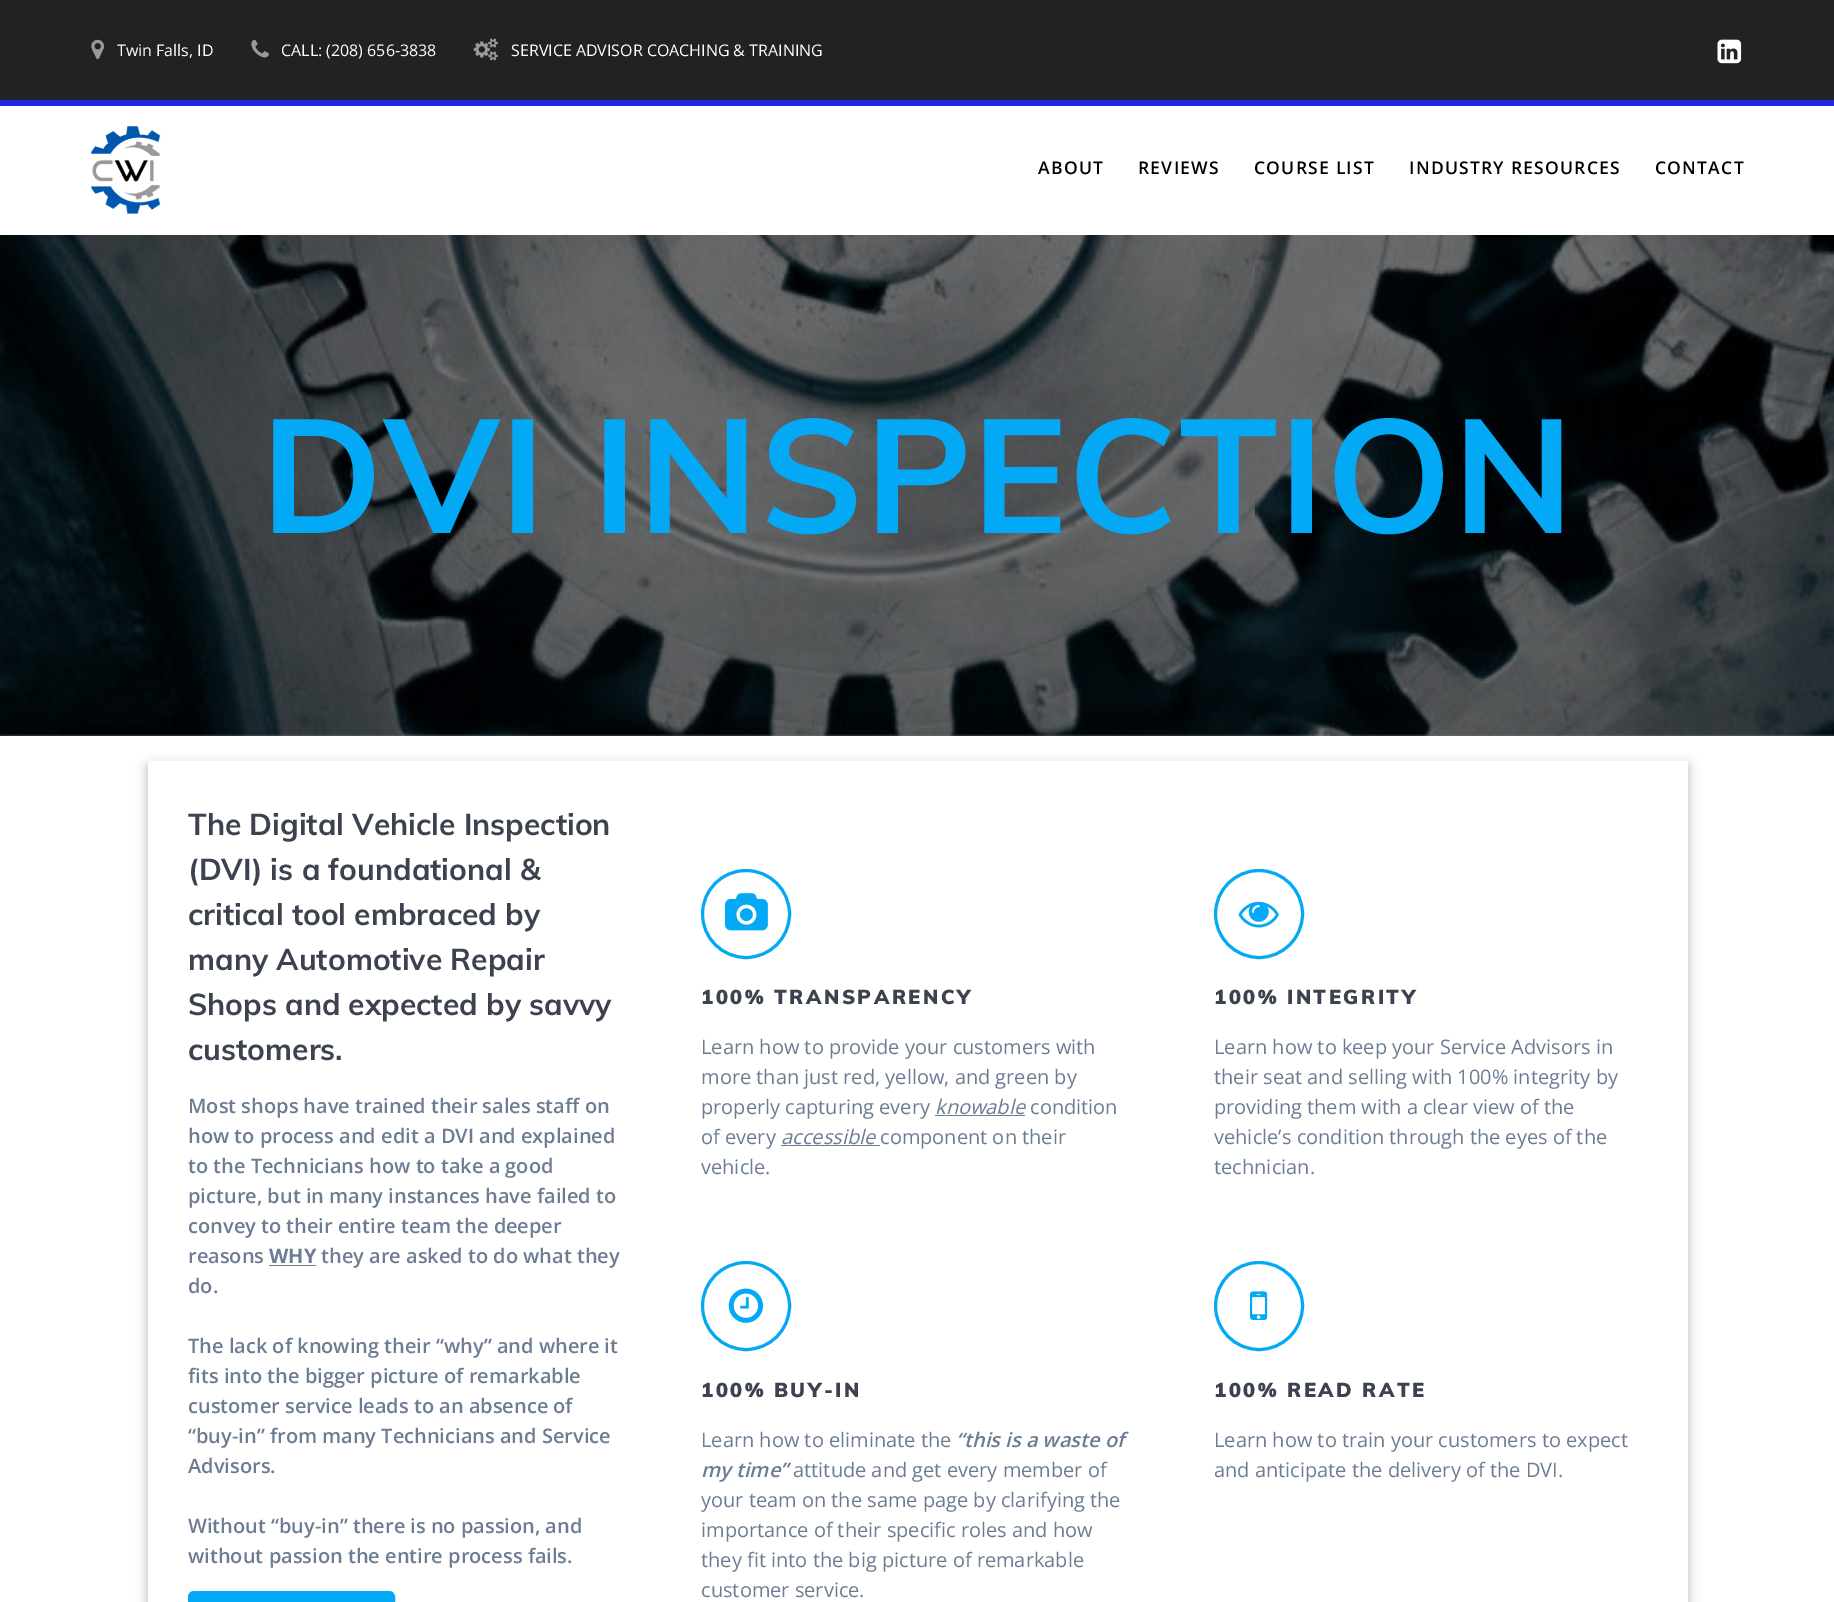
%!PS-Adobe-3.0
%%BoundingBox: 0 0 1834 1602
%%LanguageLevel: 3
%%Pages: 1
%%EndComments
%%BeginProlog
/m { moveto } bind def
/f { fill } bind def
/S { stroke } bind def
/q { gsave } bind def
/Q { grestore } bind def
/w { setlinewidth } bind def
/fn { [ exch dup neg 0 0 3 -1 roll 0 0 ] selectfont } def
/tx { moveto show } def
/bx { rectfill } def
/al { dup .setfillconstantalpha .setstrokeconstantalpha } def
/ci { newpath 0 360 arc closepath } def
/rr { 5 dict begin { /r /h /w /y /x } { exch def } forall
  x r add y moveto x w add y 2 copy h add r arct x w add y h add x 1 index r arct
  x y h add x y r arct x y 2 copy exch w add exch r arct closepath end } def
/sh { 12 dict begin { /a /b /q /h /w /y /x } { exch def } forall gsave /was 0 def
  9 -2 -9 { dup b mul 4 div /e exch def 1 sub .425 mul 2.718 exch exp 1 add a .99 .min exch div /now exch def
    1 1 now sub 1 was sub div sub al /was now def
    w h .min e 2 mul add 0 gt { x e sub y e sub w e 2 mul add h e 2 mul add
      q e add b .6 mul add w h .min 2 div e add .min 0 .max rr fill } if } for grestore end } def
/im { 5 dict begin { /h /w /y /x /name } { exch def } forall
  gsave x y translate w h scale
  w h 8 [w 0 0 h 0 0] name (r) file false 3 colorimage grestore end } def
%%EndProlog
%%BeginSetup
<< /PageSize [1834 1602] /PageUsesTransparency true >> setpagedevice
%%EndSetup
%%Page: 1 1
0 .pushpdf14devicefilter
0 1602 translate 1 -1 scale
4 setmiterlimit
0.459 setgray
0 0 1834 1602 bx
0.133 setgray
0 0 1834 100 bx
0.141 0.153 0.886 setrgbcolor
0 100 1834 6 bx
(image0.raw) 91 39 14 21 im
/OpenSans-Regular 16 fn
1 setgray
(Twin Falls, ID) 117 56 tx
(image1.raw) 251 39 18 19 im
(CALL: \(208\) 656-3838) 281 56 tx
(image2.raw) 473 38 25 23 im
(SERVICE ADVISOR COACHING & TRAINING) 511 56 tx
(image3.raw) 1717 39 25 25 im
0 106 1834 129 bx
(image4.raw) 91 126 70 88 im
/OpenSans-SemiBold 17.5 fn
0 setgray
1038 174 m 1.25 0 (ABOUT) ashow
1138 174 m 1.25 0 (REVIEWS) ashow
1254 174 m 1.25 0 (COURSE LIST) ashow
1409 174 m 1.25 0 (INDUSTRY RESOURCES) ashow
1655 174 m 1.25 0 (CONTACT) ashow
(image5.raw) 0 235 1834 501 im
/Muli-Bold 160 fn
0.012 0.663 0.957 setrgbcolor
261 533 m 1.1 0 (DVI INSPECTION) ashow
1 setgray
0 736 1834 866 bx
0 setgray
148 766 1540 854 0 6 0.08 sh
0.29 setgray
148 766 1540 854 0 6 0.3 sh
1 setgray
148 761 1540 841 bx
/Muli-Bold 30 fn
0.235 0.259 0.31 setrgbcolor
(The Digital Vehicle Inspection) 188 835 tx
(\(DVI\) is a foundational &) 188 880 tx
(critical tool embraced by) 188 925 tx
(many Automotive Repair) 188 970 tx
(Shops and expected by savvy) 188 1015 tx
(customers.) 188 1060 tx
/OpenSans-SemiBold 20 fn
0.42 0.486 0.576 setrgbcolor
(Most shops have trained their sales staff on) 188 1113 tx
(how to process and edit a DVI and explained) 188 1143 tx
(to the Technicians how to take a good) 188 1173 tx
(picture, but in many instances have failed to) 188 1203 tx
(convey to their entire team the deeper) 188 1233 tx
(reasons) 188 1263 tx
/OpenSans-Bold 20 fn
(WHY) 269 1263 tx
269 1265 47 1 bx
/OpenSans-SemiBold 20 fn
(they are asked to do what they) 321 1263 tx
(do.) 188 1293 tx
(The lack of knowing their “why” and where it) 188 1353 tx
(fits into the bigger picture of remarkable) 188 1383 tx
(customer service leads to an absence of) 188 1413 tx
(“buy-in” from many Technicians and Service) 188 1443 tx
(Advisors.) 188 1473 tx
(Without “buy-in” there is no passion, and) 188 1533 tx
(without passion the entire process fails.) 188 1563 tx
0.012 0.663 0.957 setrgbcolor
189.5 1592.5 204 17 4.5 rr q f Q
3 w
S
746 914 43.5 ci S
(image6.raw) 725 893 43 38 im
/Muli-Black 20 fn
0.235 0.259 0.31 setrgbcolor
701 1004 m 2.5 0 (100% TRANSPARENCY) ashow
/OpenSans-Regular 20 fn
0.42 0.486 0.576 setrgbcolor
(Learn how to provide your customers with) 701 1054 tx
(more than just red, yellow, and green by) 701 1084 tx
(properly capturing every) 701 1114 tx
/OpenSans-Italic 20 fn
(knowable) 935 1114 tx
935 1115 90 1 bx
/OpenSans-Regular 20 fn
(condition) 1030 1114 tx
(of every) 701 1144 tx
/OpenSans-Italic 20 fn
(accessible) 781 1144 tx
781 1145 99 1 bx
/OpenSans-Regular 20 fn
(component on their) 880 1144 tx
(vehicle.) 701 1174 tx
0.012 0.663 0.957 setrgbcolor
1259 914 43.5 ci S
(image7.raw) 1238 901 41 27 im
/Muli-Black 20 fn
0.235 0.259 0.31 setrgbcolor
1214 1004 m 2.5 0 (100% INTEGRITY) ashow
/OpenSans-Regular 20 fn
0.42 0.486 0.576 setrgbcolor
(Learn how to keep your Service Advisors in) 1214 1054 tx
(their seat and selling with 100% integrity by) 1214 1084 tx
(providing them with a clear view of the) 1214 1114 tx
(vehicle’s condition through the eyes of the) 1214 1144 tx
(technician.) 1214 1174 tx
0.012 0.663 0.957 setrgbcolor
746 1306 43.5 ci S
(image8.raw) 728 1288 35 35 im
/Muli-Black 20 fn
0.235 0.259 0.31 setrgbcolor
701 1397 m 2.5 0 (100% BUY-IN) ashow
/OpenSans-Regular 20 fn
0.42 0.486 0.576 setrgbcolor
(Learn how to eliminate the) 701 1447 tx
/OpenSans-SemiBoldItalic 20 fn
(“this is a waste of) 956 1447 tx
(my time”) 701 1477 tx
/OpenSans-Regular 20 fn
(attitude and get every member of) 793 1477 tx
(your team on the same page by clarifying the) 701 1507 tx
(importance of their specific roles and how) 701 1537 tx
(they fit into the big picture of remarkable) 701 1567 tx
(customer service.) 701 1597 tx
0.012 0.663 0.957 setrgbcolor
1259 1306 43.5 ci S
(image9.raw) 1250 1291 18 29 im
/Muli-Black 20 fn
0.235 0.259 0.31 setrgbcolor
1214 1397 m 2.5 0 (100% READ RATE) ashow
/OpenSans-Regular 20 fn
0.42 0.486 0.576 setrgbcolor
(Learn how to train your customers to expect) 1214 1447 tx
(and anticipate the delivery of the DVI.) 1214 1477 tx
.poppdf14devicefilter showpage
%%EOF
